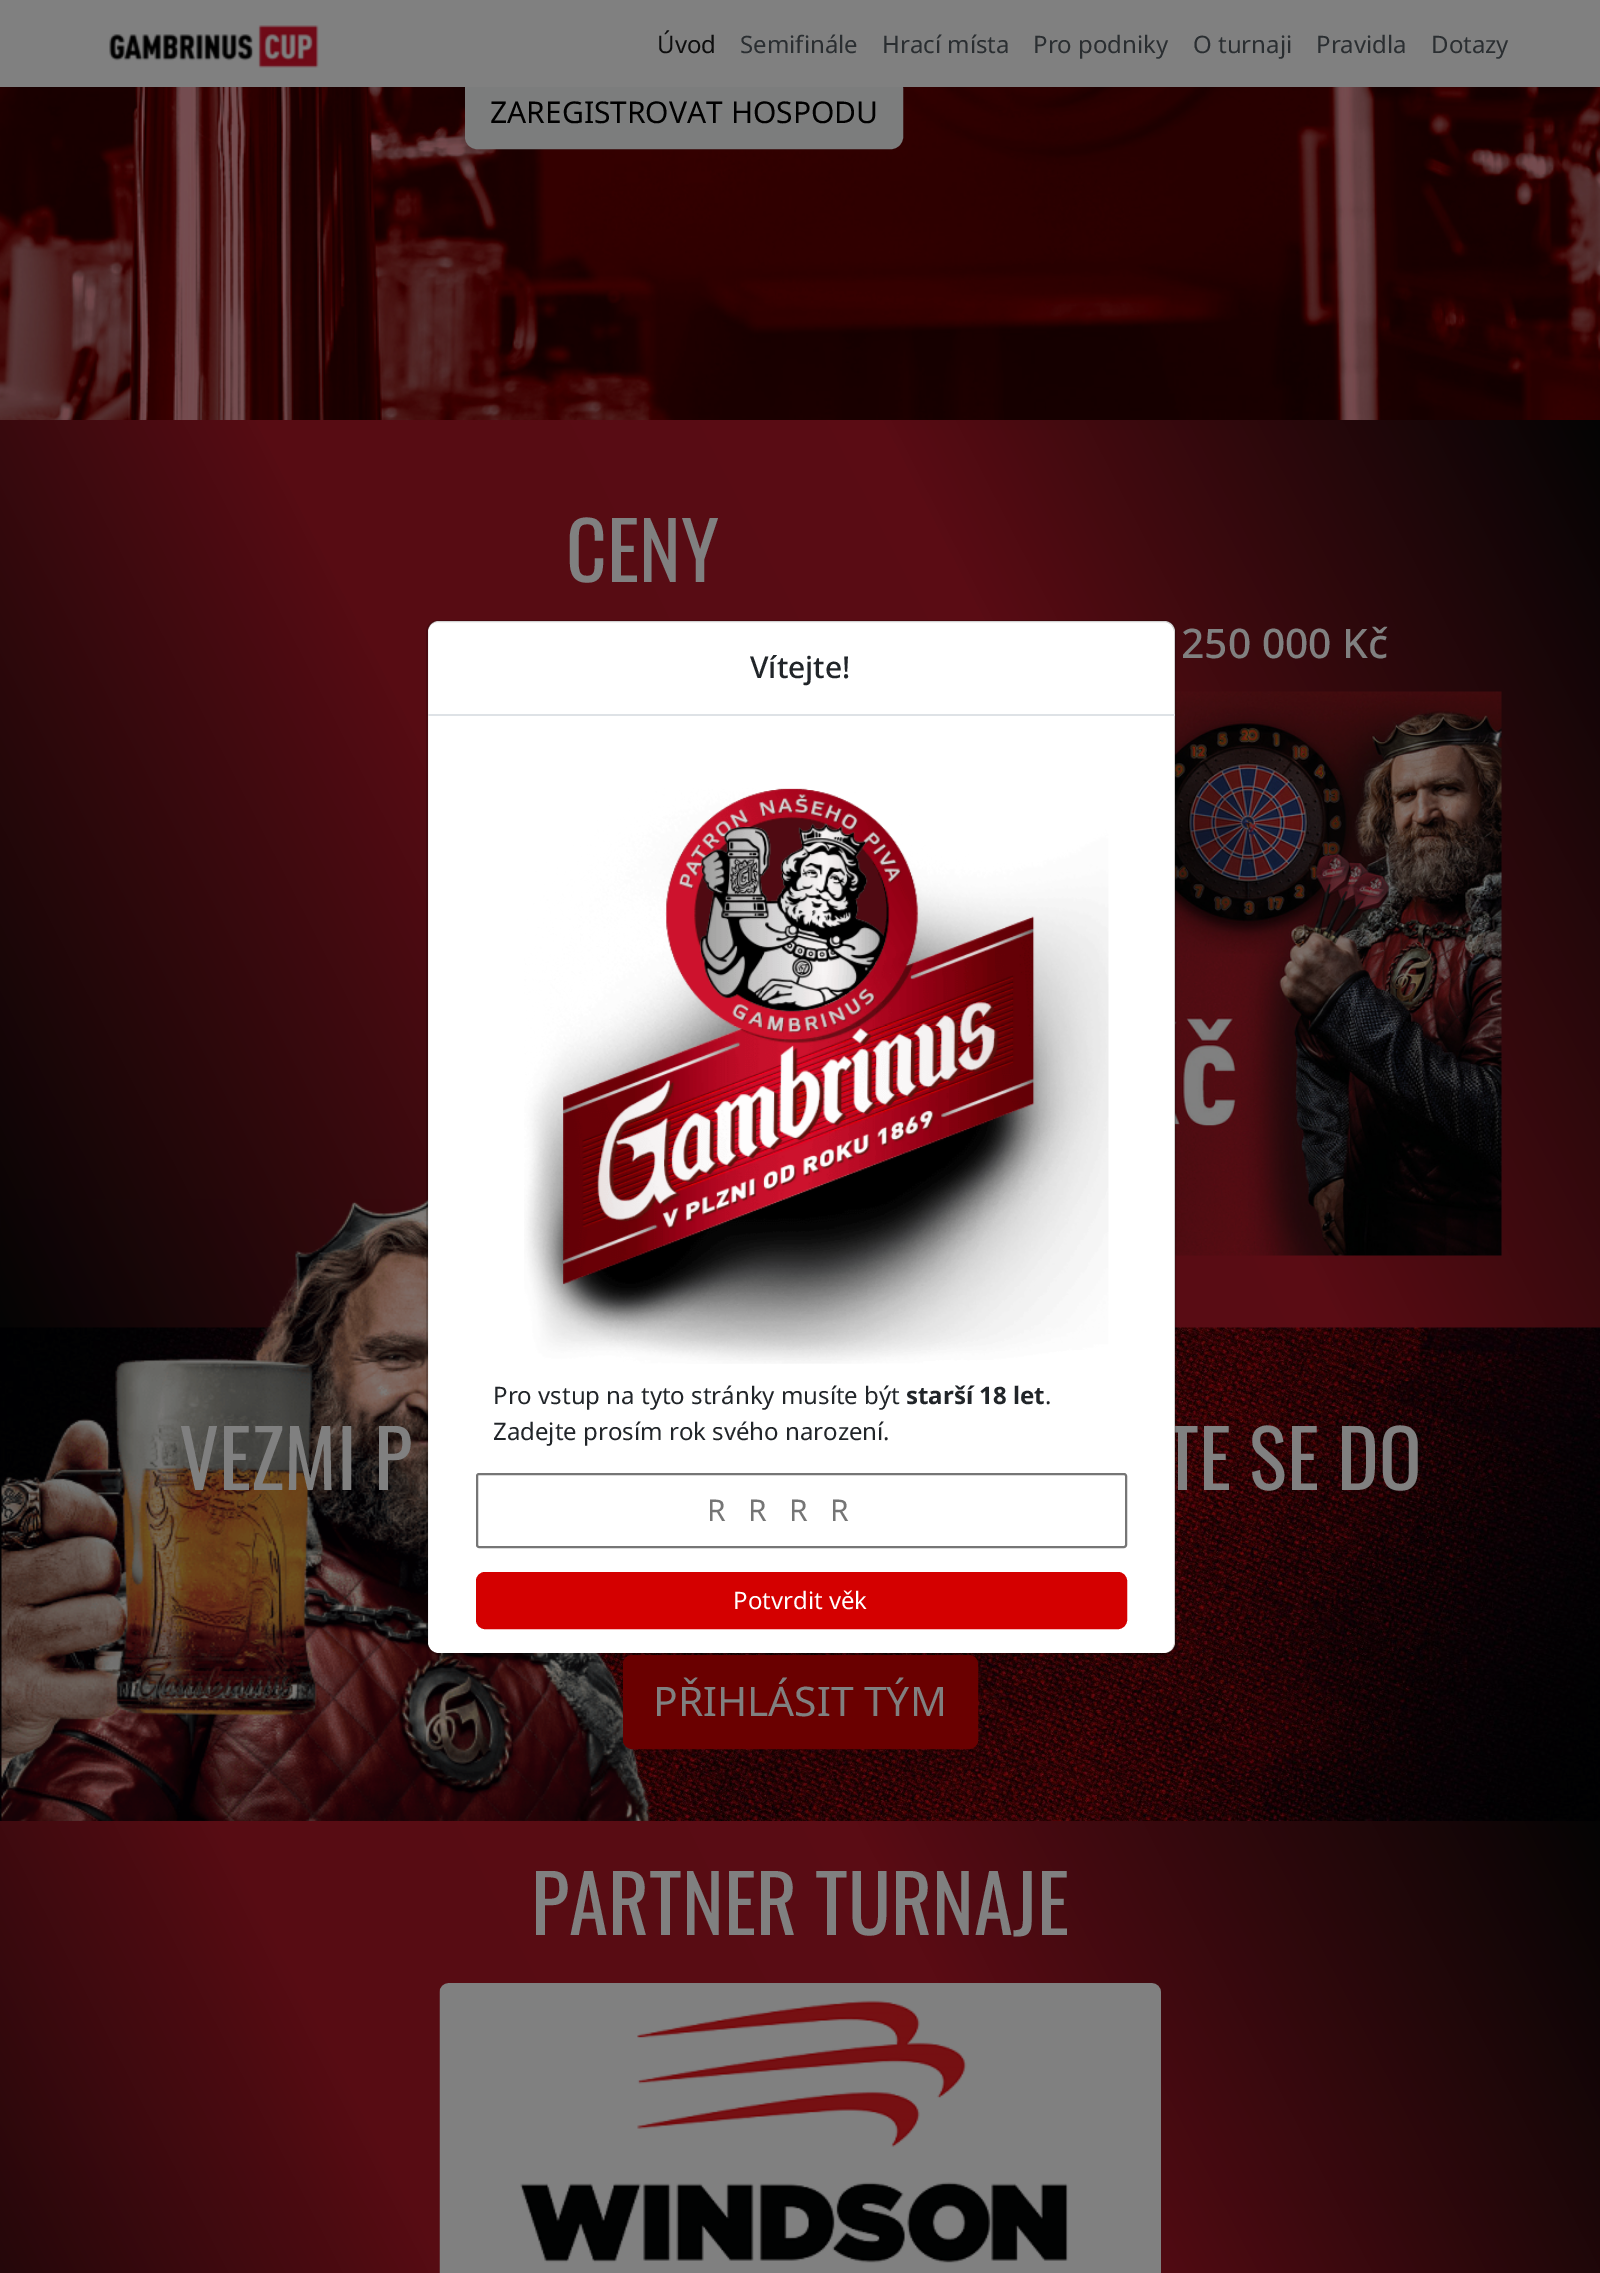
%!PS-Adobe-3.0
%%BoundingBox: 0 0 1600 2273
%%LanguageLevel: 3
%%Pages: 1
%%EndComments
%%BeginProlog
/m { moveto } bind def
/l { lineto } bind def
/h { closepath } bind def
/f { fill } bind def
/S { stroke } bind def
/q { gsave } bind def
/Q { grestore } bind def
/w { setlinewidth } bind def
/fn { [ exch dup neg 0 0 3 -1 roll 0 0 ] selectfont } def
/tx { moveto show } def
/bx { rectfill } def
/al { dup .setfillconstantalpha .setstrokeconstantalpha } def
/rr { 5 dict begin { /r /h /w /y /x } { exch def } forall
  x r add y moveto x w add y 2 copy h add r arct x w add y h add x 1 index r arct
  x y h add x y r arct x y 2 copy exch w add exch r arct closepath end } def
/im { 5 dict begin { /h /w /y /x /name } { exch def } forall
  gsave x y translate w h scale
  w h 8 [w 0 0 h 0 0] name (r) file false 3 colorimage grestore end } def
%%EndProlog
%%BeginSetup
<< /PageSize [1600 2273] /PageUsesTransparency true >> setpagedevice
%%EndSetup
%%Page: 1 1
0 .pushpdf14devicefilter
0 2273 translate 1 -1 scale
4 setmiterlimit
1 setgray
0 0 1600 2273 bx
(image1.raw) 0 87 1600 333 im
0.486 0.49 0.49 setrgbcolor
466 78 436 70 11 rr q f Q
2 w
S
0.502 setgray
0 0 1600 87 bx
(image0.raw) 109 25 210 43 im
/NotoSans-Regular 24 fn
0.051 setgray
(Úvod) 657 53 tx
0.165 0.18 0.192 setrgbcolor
(Semifinále) 740 53 tx
(Hrací místa) 882 53 tx
(Pro podniky) 1033 53 tx
(O turnaji) 1193 53 tx
(Pravidla) 1316 53 tx
(Dotazy) 1431 53 tx
/NotoSans-Regular 30 fn
0 setgray
(ZAREGISTROVAT HOSPODU) 490 123 tx
q 0 420 m 1600 420 l 1600 1328 l 0 1328 l h clip newpath
<< /ShadingType 2 /ColorSpace /DeviceRGB /Coords [-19 1291 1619 457] /Extend [true true] /Function << /FunctionType 3 /Domain [0 1] /Functions [<< /FunctionType 2 /Domain [0 1] /C0 [0.016 0.016 0.016] /C1 [0.341 0.047 0.075] /N 1 >> << /FunctionType 2 /Domain [0 1] /C0 [0.341 0.047 0.075] /C1 [0.353 0.047 0.078] /N 1 >> << /FunctionType 2 /Domain [0 1] /C0 [0.353 0.047 0.078] /C1 [0.016 0.016 0.016] /N 1 >>] /Bounds [0.35 0.65] /Encode [0 1 0 1 0 1] >> >> shfill Q
/Oswald-Regular 79.25 fn
0.502 setgray
(CENY) 566 582 tx
/NotoSans-Medium 40.75 fn
(250 000 Kč) 1181 658 tx
(image2.raw) 1175 691 327 565 im
(image3.raw) 0 1327 1600 494 im
(image4.raw) 1 1199 650 622 im
/Oswald-Regular 79.25 fn
(VEZMI P) 179 1490 tx
(TE SE DO) 1166 1490 tx
0.416 0 0 setrgbcolor
624 1656 353 92 8 rr q f Q
S
/NotoSans-Regular 40.75 fn
0.502 setgray
(PŘIHLÁSIT TÝM) 653 1716 tx
q 0 1821 m 1600 1821 l 1600 2273 l 0 2273 l h clip newpath
<< /ShadingType 2 /ColorSpace /DeviceRGB /Coords [-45 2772 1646 1910] /Extend [true true] /Function << /FunctionType 3 /Domain [0 1] /Functions [<< /FunctionType 2 /Domain [0 1] /C0 [0.016 0.016 0.016] /C1 [0.341 0.047 0.075] /N 1 >> << /FunctionType 2 /Domain [0 1] /C0 [0.341 0.047 0.075] /C1 [0.353 0.047 0.078] /N 1 >> << /FunctionType 2 /Domain [0 1] /C0 [0.353 0.047 0.078] /C1 [0.016 0.016 0.016] /N 1 >>] /Bounds [0.35 0.65] /Encode [0 1 0 1 0 1] >> >> shfill Q
/Oswald-Regular 79.25 fn
(PARTNER TURNAJE) 531 1935 tx
(image5.raw) 439 1983 722 290 im
1 setgray
428 621 747 1032 11 rr f
0.18 al
0 setgray
427 621 748 1033 11 rr S
1 al
0.871 0.886 0.902 setrgbcolor
428 714 747 2 bx
/NotoSans-Medium 30 fn
0.129 0.145 0.161 setrgbcolor
(Vítejte!) 750 678 tx
(image6.raw) 524 788 585 576 im
/NotoSans-Regular 24 fn
(Pro vstup na tyto stránky musíte být) 493 1404 tx
/NotoSans-Bold 24 fn
(starší 18 let) 906 1404 tx
/NotoSans-Regular 24 fn
(.) 1045 1404 tx
(Zadejte prosím rok svého narození.) 493 1440 tx
0.463 setgray
477 1474 649 73 2 rr S
/NotoSans-Regular 30 fn
0.459 setgray
707 1521 m 22.5 0 (RRRR) ashow
0.831 0 0 setrgbcolor
477 1573 649 55 8 rr q f Q
S
/NotoSans-Regular 24 fn
1 setgray
(Potvrdit věk) 733 1609 tx
.poppdf14devicefilter showpage
%%EOF
